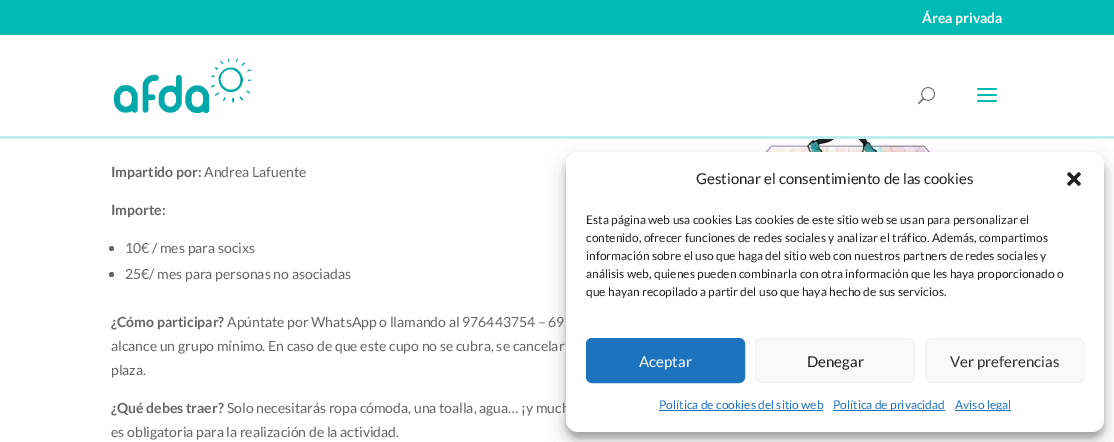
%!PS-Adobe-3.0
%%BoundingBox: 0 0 1114 442
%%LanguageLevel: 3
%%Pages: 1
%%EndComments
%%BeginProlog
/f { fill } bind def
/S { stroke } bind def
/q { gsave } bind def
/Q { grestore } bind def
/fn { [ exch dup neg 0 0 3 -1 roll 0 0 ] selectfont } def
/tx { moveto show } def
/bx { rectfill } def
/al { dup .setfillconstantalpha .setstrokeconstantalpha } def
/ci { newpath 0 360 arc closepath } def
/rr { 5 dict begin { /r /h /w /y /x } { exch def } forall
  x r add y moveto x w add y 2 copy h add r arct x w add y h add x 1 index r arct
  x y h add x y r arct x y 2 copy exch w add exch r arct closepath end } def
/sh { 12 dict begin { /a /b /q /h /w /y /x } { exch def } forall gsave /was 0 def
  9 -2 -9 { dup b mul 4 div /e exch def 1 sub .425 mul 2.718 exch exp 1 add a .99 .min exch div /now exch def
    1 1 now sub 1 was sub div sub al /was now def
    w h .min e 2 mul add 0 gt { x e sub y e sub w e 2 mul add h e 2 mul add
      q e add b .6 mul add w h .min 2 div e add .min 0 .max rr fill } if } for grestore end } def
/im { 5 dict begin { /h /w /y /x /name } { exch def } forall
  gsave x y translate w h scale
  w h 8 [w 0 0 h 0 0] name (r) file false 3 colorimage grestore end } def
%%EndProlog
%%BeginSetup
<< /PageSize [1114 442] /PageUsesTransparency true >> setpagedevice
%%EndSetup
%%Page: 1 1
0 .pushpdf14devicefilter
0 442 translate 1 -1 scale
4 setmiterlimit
1 setgray
0 0 1114 442 bx
0 0.733 0.706 setrgbcolor
0 0 1114 35 bx
/Lato-Bold 14 fn
1 setgray
(Área privada) 922 23 tx
(image3.raw) 741 139 212 13 im
0 setgray
566 162 538 280 12 10 0.19 sh
0.749 0.933 0.925 setrgbcolor
0 136 1114 3 bx
(image0.raw) 114 58 137 55 im
(image1.raw) 918 87 17 18 im
(image2.raw) 977 88 20 14 im
0.4 setgray
(Impartido por:) 111 177 tx
/Lato-Regular 14 fn
(Andrea Lafuente) 204 177 tx
/Lato-Bold 14 fn
(Importe:) 111 215 tx
111.5 248.5 2.5 ci f
/Lato-Regular 14 fn
(10€ / mes para socixs) 125 253 tx
111.5 274.5 2.5 ci f
(25€/ mes para personas no asociadas) 125 279 tx
/Lato-Bold 14 fn
(¿Cómo participar?) 111 327 tx
/Lato-Regular 14 fn
(Apúntate por WhatsApp o llamando al 976443754 – 69) 227 327 tx
(alcance un grupo mínimo. En caso de que este cupo no se cubra, se cancelar) 111 351 tx
(plaza.) 111 375 tx
/Lato-Bold 14 fn
(¿Qué debes traer?) 111 413 tx
/Lato-Regular 14 fn
(Solo necesitarás ropa cómoda, una toalla, agua… ¡y much) 227 413 tx
(es obligatoria para la realización de la actividad.) 111 437 tx
0 setgray
566 158 538 280 12 3 0.23 sh
1 setgray
566 152 538 280 12 rr f
/Lato-Regular 15 fn
0.133 setgray
(Gestionar el consentimiento de las cookies) 696 184 tx
(image4.raw) 1067 172 14 14 im
/Lato-Regular 12 fn
(Esta página web usa cookies Las cookies de este sitio web se usan para personalizar el) 586 224 tx
(contenido, ofrecer funciones de redes sociales y analizar el tráfico. Además, compartimos) 586 242 tx
(información sobre el uso que haga del sitio web con nuestros partners de redes sociales y) 586 260 tx
(análisis web, quienes pueden combinarla con otra información que les haya proporcionado o) 586 278 tx
(que hayan recopilado a partir del uso que haya hecho de sus servicios.) 586 296 tx
0.118 0.451 0.745 setrgbcolor
586.5 338.5 158 44 5.5 rr q f Q
S
/Lato-Regular 15 fn
1 setgray
(Aceptar) 639 367 tx
0.976 setgray
755.5 338.5 159 44 5.5 rr q f Q
0.949 setgray
S
0.133 setgray
(Denegar) 807 367 tx
0.976 setgray
925.5 338.5 158 44 5.5 rr q f Q
0.949 setgray
S
0.2 setgray
(Ver preferencias) 950 367 tx
/Lato-Regular 12 fn
0.118 0.451 0.745 setrgbcolor
(Política de cookies del sitio web) 659 409 tx
659 410 164 1 bx
833 410 112 1 bx
(Política de privacidad) 833 409 tx
955 410 56 1 bx
(Aviso legal) 955 409 tx
.poppdf14devicefilter showpage
%%EOF
